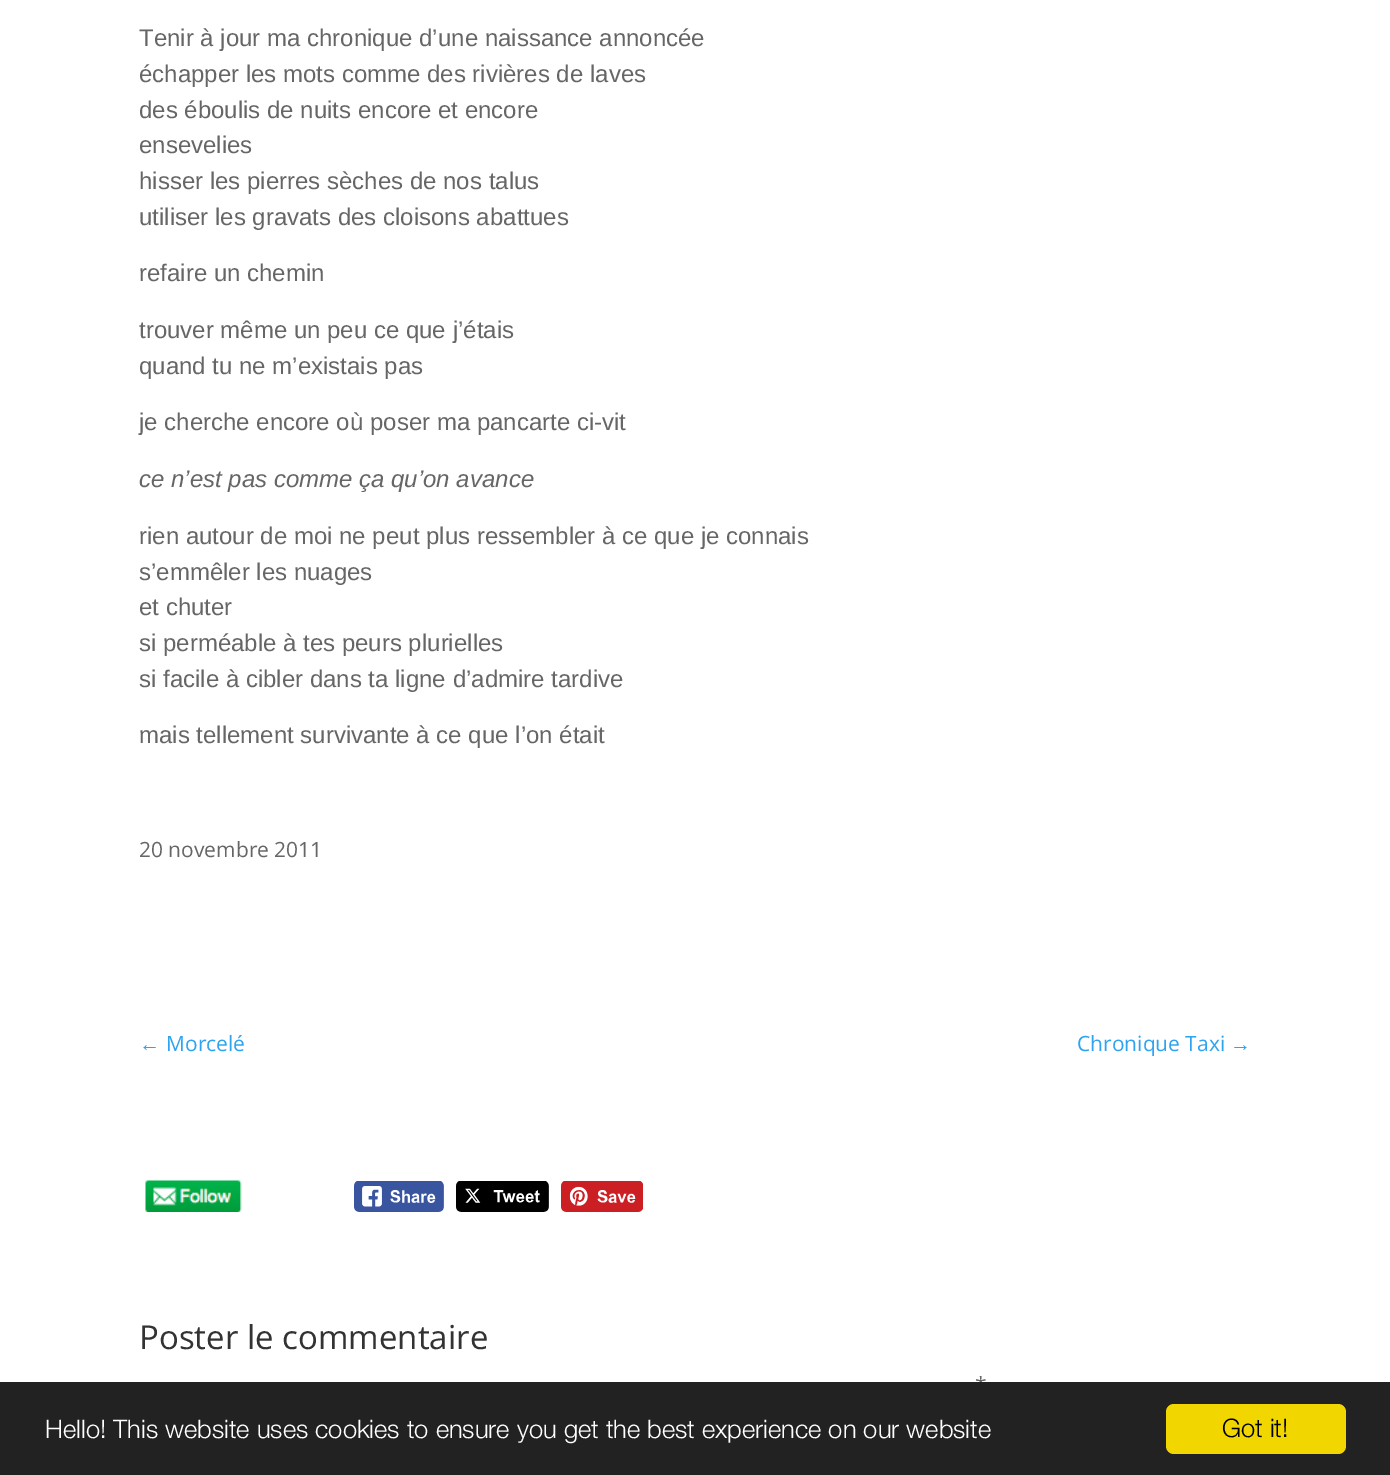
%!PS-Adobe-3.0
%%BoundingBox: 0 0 1390 1475
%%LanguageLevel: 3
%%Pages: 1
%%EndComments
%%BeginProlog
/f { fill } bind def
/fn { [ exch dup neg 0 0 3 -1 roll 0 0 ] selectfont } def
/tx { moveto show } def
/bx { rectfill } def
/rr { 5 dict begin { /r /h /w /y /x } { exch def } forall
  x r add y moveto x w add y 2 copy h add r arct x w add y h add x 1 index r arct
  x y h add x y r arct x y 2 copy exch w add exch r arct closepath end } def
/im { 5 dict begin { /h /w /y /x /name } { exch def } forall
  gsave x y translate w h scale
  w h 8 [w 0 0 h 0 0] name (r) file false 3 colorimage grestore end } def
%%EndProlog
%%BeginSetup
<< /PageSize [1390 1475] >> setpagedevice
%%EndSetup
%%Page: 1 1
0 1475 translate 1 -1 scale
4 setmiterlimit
1 setgray
0 0 1390 1475 bx
/LiberationSans-Regular 24 fn
0.4 setgray
(Tenir à jour ma chronique d’une naissance annoncée) 139 46 tx
(échapper les mots comme des rivières de laves) 139 82 tx
(des éboulis de nuits encore et encore) 139 118 tx
(ensevelies) 139 153 tx
(hisser les pierres sèches de nos talus) 139 189 tx
(utiliser les gravats des cloisons abattues) 139 225 tx
(refaire un chemin) 139 281 tx
(trouver même un peu ce que j’étais) 139 338 tx
(quand tu ne m’existais pas) 139 374 tx
(je cherche encore où poser ma pancarte ci-vit) 139 430 tx
/LiberationSans-Italic 24 fn
(ce n’est pas comme ça qu’on avance) 139 487 tx
/LiberationSans-Regular 24 fn
(rien autour de moi ne peut plus ressembler à ce que je connais) 139 544 tx
(s’emmêler les nuages) 139 580 tx
(et chuter) 139 615 tx
(si perméable à tes peurs plurielles) 139 651 tx
(si facile à cibler dans ta ligne d’admire tardive) 139 687 tx
(mais tellement survivante à ce que l’on était) 139 743 tx
/OpenSans-Regular 21 fn
(20 novembre 2011) 139 857 tx
/LiberationSans-Regular 21 fn
0.18 0.639 0.949 setrgbcolor
(←) 139 1051 tx
/OpenSans-Regular 21 fn
(Morcelé) 166 1051 tx
(Chronique Taxi) 1077 1051 tx
/LiberationSans-Regular 21 fn
(→) 1230 1051 tx
(image0.raw) 145 1180 97 32 im
(image1.raw) 354 1181 90 31 im
(image2.raw) 456 1181 93 31 im
(image3.raw) 561 1181 82 31 im
/OpenSans-Regular 33 fn
0.2 setgray
(Poster le commentaire) 139 1349 tx
/OpenSans-Regular 21 fn
0.4 setgray
(*) 975 1392 tx
0.133 setgray
0 1382 1390 93 bx
/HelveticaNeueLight-Light 25.5 fn
1 setgray
(Hello! This website uses cookies to ensure you get the best experience on our website) 45 1438 tx
0.945 0.839 0 setrgbcolor
1166 1404 180 50 8 rr f
0 setgray
(Got it!) 1222 1437 tx
showpage
%%EOF
